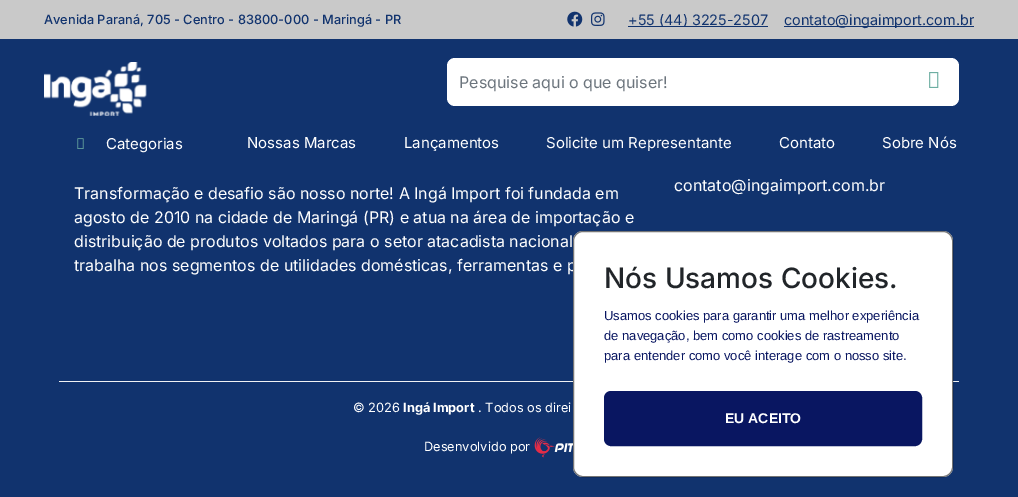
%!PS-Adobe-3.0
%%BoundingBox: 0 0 1018 497
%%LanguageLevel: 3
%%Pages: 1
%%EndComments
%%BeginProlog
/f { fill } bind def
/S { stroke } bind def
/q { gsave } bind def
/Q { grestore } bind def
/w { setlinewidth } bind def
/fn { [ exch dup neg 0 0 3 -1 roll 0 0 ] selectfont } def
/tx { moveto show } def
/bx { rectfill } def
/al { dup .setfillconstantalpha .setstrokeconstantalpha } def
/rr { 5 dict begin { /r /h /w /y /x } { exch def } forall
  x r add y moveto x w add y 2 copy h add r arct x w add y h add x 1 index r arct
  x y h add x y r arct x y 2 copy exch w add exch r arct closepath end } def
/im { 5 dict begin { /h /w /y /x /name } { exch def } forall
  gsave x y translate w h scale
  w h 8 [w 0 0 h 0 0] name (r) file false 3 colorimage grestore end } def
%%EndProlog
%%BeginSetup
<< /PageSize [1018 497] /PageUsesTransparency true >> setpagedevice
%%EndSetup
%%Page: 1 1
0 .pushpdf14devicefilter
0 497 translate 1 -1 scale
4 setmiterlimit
0.067 0.2 0.431 setrgbcolor
0 0 1018 497 bx
0.788 setgray
0 0 1018 39 bx
/Inter-Medium 12.8 fn
0.067 0.2 0.431 setrgbcolor
(Avenida Paraná, 705 - Centro - 83800-000 - Maringá - PR) 44 24 tx
(image0.raw) 567 11 16 16 im
(image1.raw) 591 12 14 14 im
628 26 140 1 bx
/Inter-Regular 14.4 fn
(+55 \(44\) 3225-2507) 628 25 tx
784 26 190 1 bx
(contato@ingaimport.com.br) 784 25 tx
(image2.raw) 44 62 103 54 im
1 setgray
447 58 512 48 8 rr f
/Inter-Regular 16 fn
0.424 0.459 0.49 setrgbcolor
(Pesquise aqui o que quiser!) 459 88 tx
(image3.raw) 929 72 10 16 im
(image4.raw) 77 138 7 11 im
/Inter-Regular 15 fn
1 setgray
(Categorias) 106 149 tx
(Nossas Marcas) 247 148 tx
(Lançamentos) 404 148 tx
(Solicite um Representante) 546 148 tx
(Contato) 779 148 tx
(Sobre Nós) 882 148 tx
/Inter-Regular 16 fn
(Transformação e desafio são nosso norte! A Ingá Import foi fundada em) 74 199 tx
(agosto de 2010 na cidade de Maringá \(PR\) e atua na área de importação e) 74 223 tx
(distribuição de produtos voltados para o setor atacadista nacional) 74 247 tx
(trabalha nos segmentos de utilidades domésticas, ferramentas e p) 74 271 tx
(contato@ingaimport.com.br) 674 191 tx
0.941 0.949 0.953 setrgbcolor
59 381 900 1 bx
/Inter-Regular 12.8 fn
1 setgray
(© 2026) 353 412 tx
/Inter-Bold 12.8 fn
(Ingá Import) 403 412 tx
/Inter-Regular 12.8 fn
(. Todos os direi) 478 412 tx
(Desenvolvido por) 424 451 tx
(image5.raw) 534 437 39 21 im
573 231 380 246 10 rr f
0.54 al
0 setgray
573.5 231.5 379 245 9.5 rr S
/Inter-Medium 28 fn
1 al
0.129 0.145 0.161 setrgbcolor
(Nós Usamos Cookies.) 604 288 tx
/LiberationSans-Regular 13 fn
0.035 0.086 0.38 setrgbcolor
(Usamos cookies para garantir uma melhor experiência) 604 320 tx
(de navegação, bem como cookies de rastreamento) 604 340 tx
(para entender como você interage com o nosso site.) 604 360 tx
605 392 316 53 6 rr q f Q
2 w
S
/LiberationSans-Bold 14 fn
1 setgray
(EU ACEITO) 725 423 tx
.poppdf14devicefilter showpage
%%EOF
